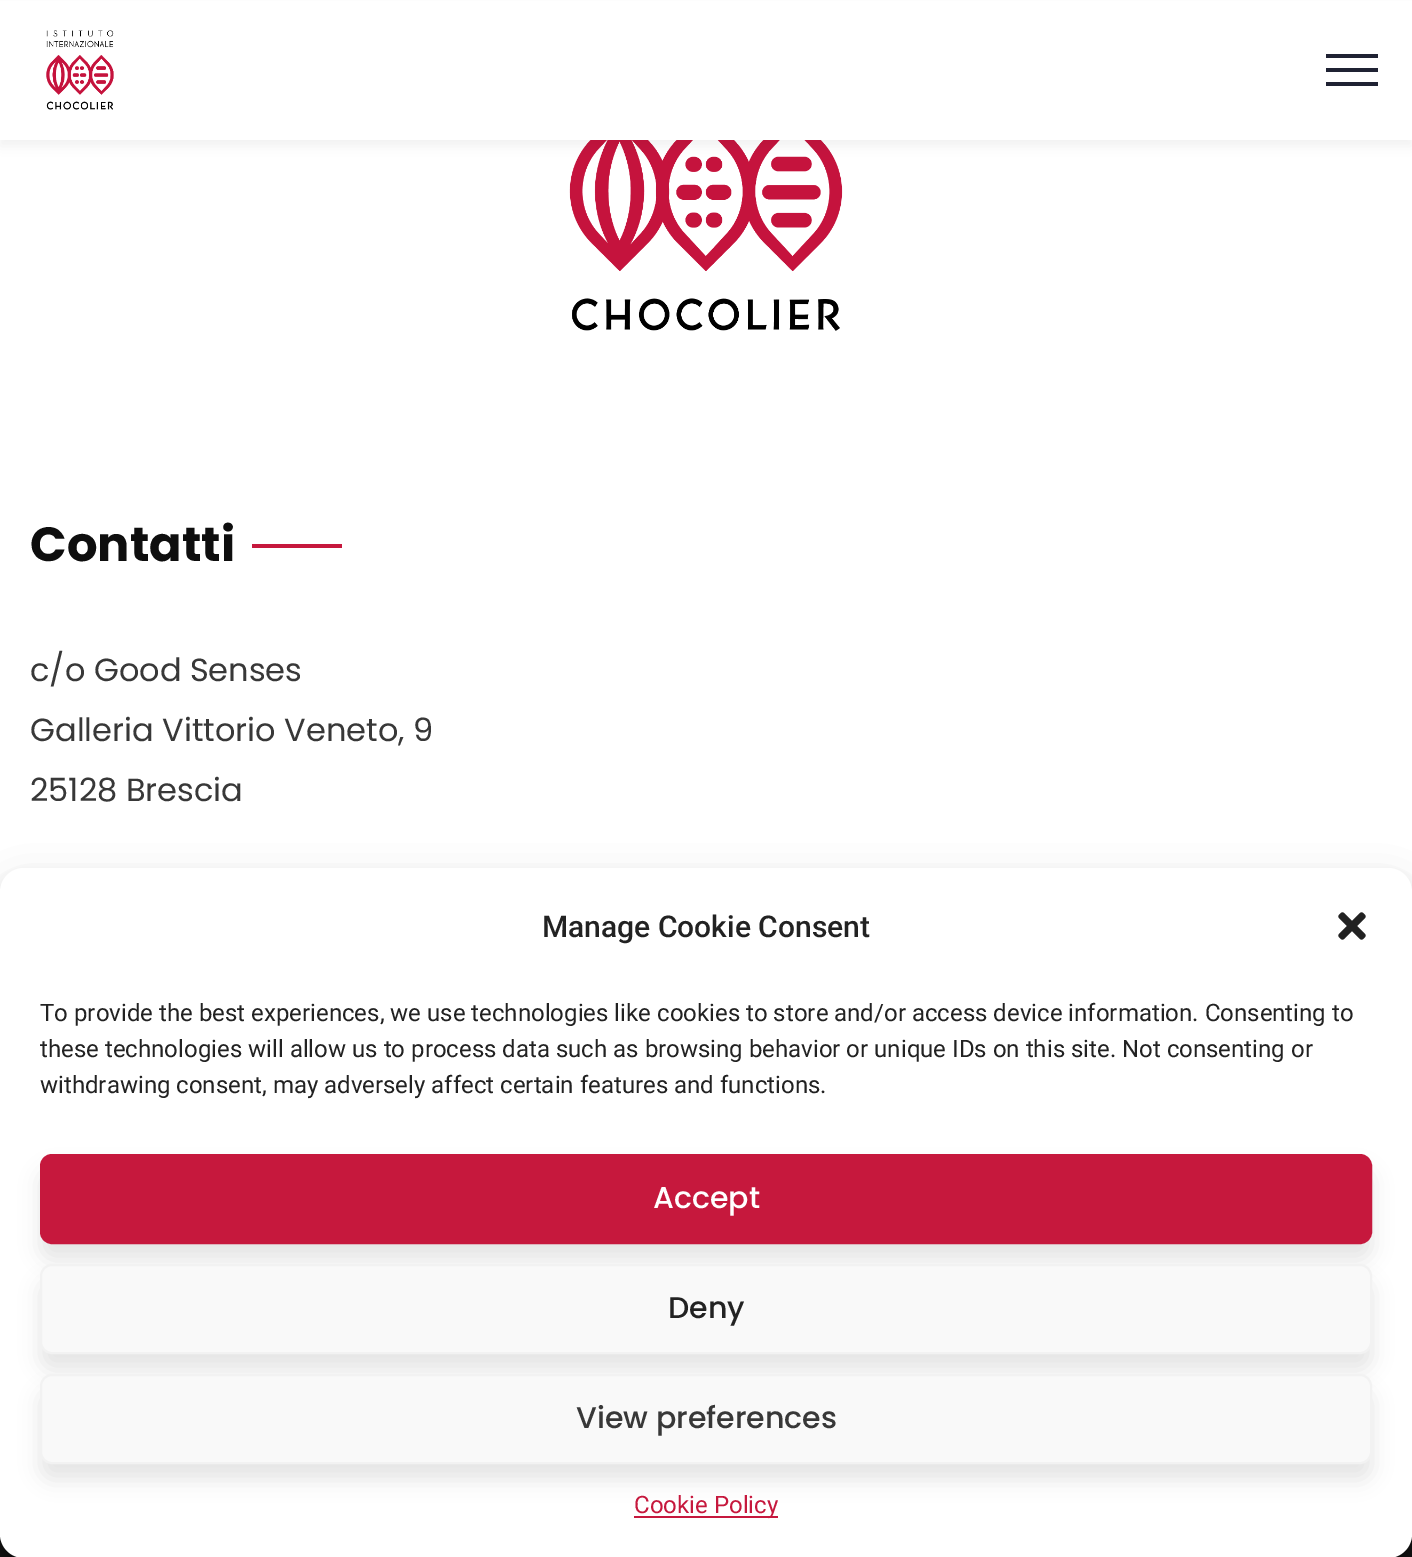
%!PS-Adobe-3.0
%%BoundingBox: 0 0 1412 1557
%%LanguageLevel: 3
%%Pages: 1
%%EndComments
%%BeginProlog
/f { fill } bind def
/S { stroke } bind def
/q { gsave } bind def
/Q { grestore } bind def
/w { setlinewidth } bind def
/fn { [ exch dup neg 0 0 3 -1 roll 0 0 ] selectfont } def
/tx { moveto show } def
/bx { rectfill } def
/al { dup .setfillconstantalpha .setstrokeconstantalpha } def
/rr { 5 dict begin { /r /h /w /y /x } { exch def } forall
  x r add y moveto x w add y 2 copy h add r arct x w add y h add x 1 index r arct
  x y h add x y r arct x y 2 copy exch w add exch r arct closepath end } def
/sh { 12 dict begin { /a /b /q /h /w /y /x } { exch def } forall gsave /was 0 def
  9 -2 -9 { dup b mul 4 div /e exch def 1 sub .425 mul 2.718 exch exp 1 add a .99 .min exch div /now exch def
    1 1 now sub 1 was sub div sub al /was now def
    w h .min e 2 mul add 0 gt { x e sub y e sub w e 2 mul add h e 2 mul add
      q e add b .6 mul add w h .min 2 div e add .min 0 .max rr fill } if } for grestore end } def
/im { 5 dict begin { /h /w /y /x /name } { exch def } forall
  gsave x y translate w h scale
  w h 8 [w 0 0 h 0 0] name (r) file false 3 colorimage grestore end } def
%%EndProlog
%%BeginSetup
<< /PageSize [1412 1557] /PageUsesTransparency true >> setpagedevice
%%EndSetup
%%Page: 1 1
0 .pushpdf14devicefilter
0 1557 translate 1 -1 scale
4 setmiterlimit
1 setgray
0 0 1412 1557 bx
(image1.raw) 569 140 274 191 im
0 setgray
0 6 1412 140 0 6 0.05 sh
1 setgray
0 1 1412 139 bx
(image0.raw) 46 30 68 80 im
0.122 0.133 0.2 setrgbcolor
1326 54 52 4 bx
1326 68 52 4 bx
1326 82 52 4 bx
/Poppins-Bold 48 fn
0.055 setgray
(Contatti) 30 561 tx
0.776 0.094 0.239 setrgbcolor
252 544 90 4 bx
/Poppins-Regular 32 fn
0.22 setgray
(c/o Good Senses) 30 681 tx
(Galleria Vittorio Veneto, 9) 30 741 tx
(25128 Brescia) 30 801 tx
0.071 setgray
0 1534 1412 23 bx
0 setgray
0 880 1412 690 24 6 0.23 sh
0 888 1412 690 24 20 0.19 sh
1 setgray
0 868 1412 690 24 rr f
/Roboto-Medium 30 fn
0.133 setgray
(Manage Cookie Consent) 542 937 tx
(image2.raw) 1338 912 28 28 im
/Roboto-Regular 24 fn
(To provide the best experiences, we use technologies like cookies to store and/or access device information. Consenting to) 40 1021 tx
(these technologies will allow us to process data such as browsing behavior or unique IDs on this site. Not consenting or) 40 1057 tx
(withdrawing consent, may adversely affect certain features and functions.) 40 1093 tx
0.047 setgray
40 1170 1332 90 12 10 0.1 sh
0.776 0.094 0.239 setrgbcolor
41 1155 1330 88 11 rr q f Q
2 w
S
/Poppins-Medium 30 fn
1 setgray
(Accept) 653 1208 tx
0.047 setgray
40 1280 1332 90 12 10 0.1 sh
0.976 setgray
41 1265 1330 88 11 rr q f Q
0.949 setgray
S
0.133 setgray
(Deny) 668 1318 tx
0.047 setgray
40 1390 1332 90 12 10 0.1 sh
0.976 setgray
41 1375 1330 88 11 rr q f Q
0.949 setgray
S
0.22 setgray
(View preferences) 576 1428 tx
0.776 0.094 0.239 setrgbcolor
634 1516 144 2 bx
/Roboto-Regular 24 fn
(Cookie Policy) 634 1513 tx
.poppdf14devicefilter showpage
%%EOF
